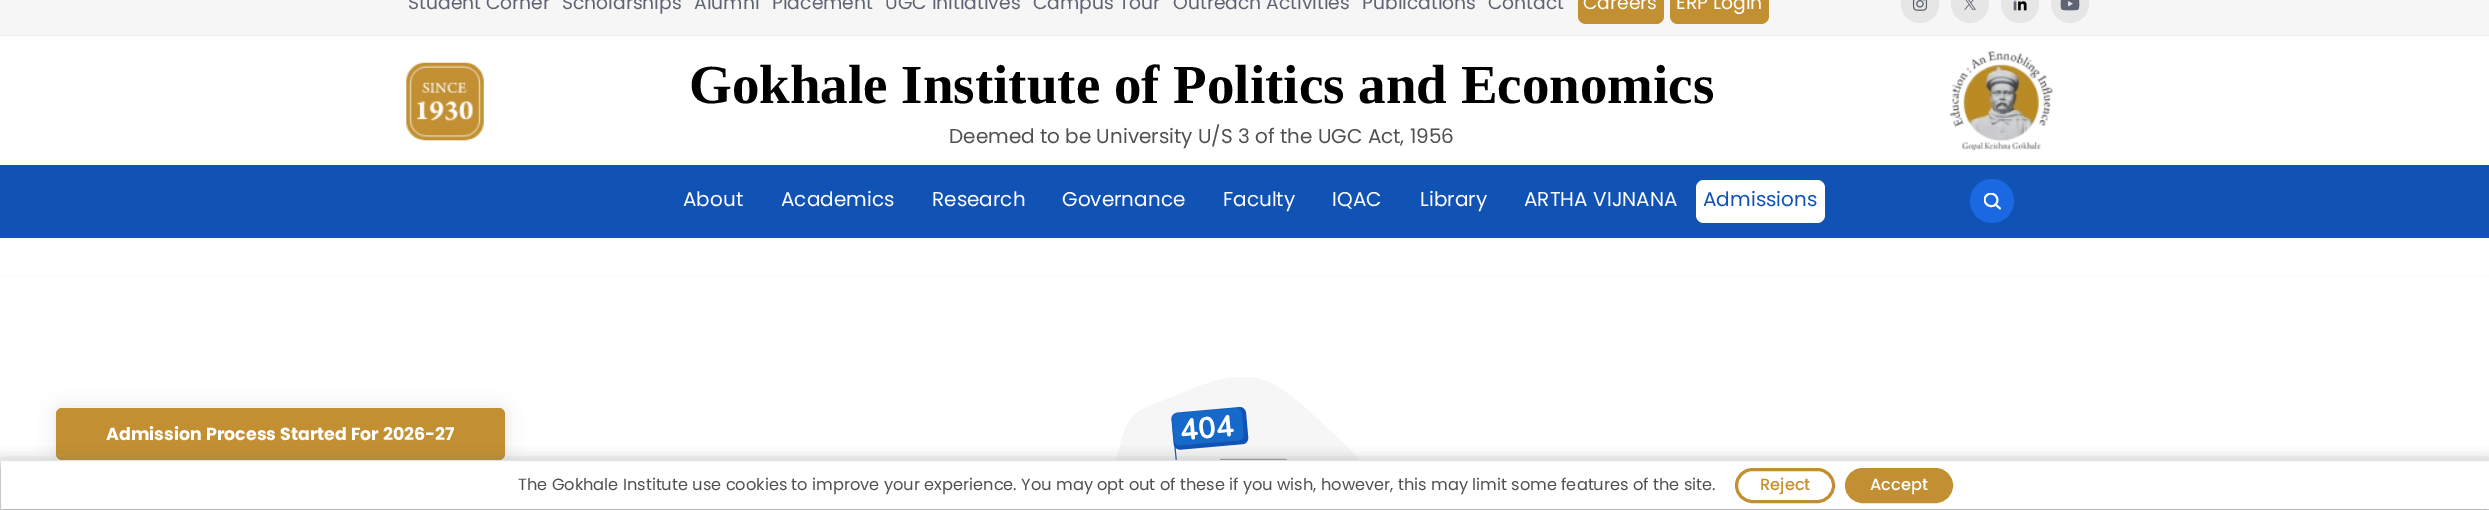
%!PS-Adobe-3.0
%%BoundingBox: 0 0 2489 510
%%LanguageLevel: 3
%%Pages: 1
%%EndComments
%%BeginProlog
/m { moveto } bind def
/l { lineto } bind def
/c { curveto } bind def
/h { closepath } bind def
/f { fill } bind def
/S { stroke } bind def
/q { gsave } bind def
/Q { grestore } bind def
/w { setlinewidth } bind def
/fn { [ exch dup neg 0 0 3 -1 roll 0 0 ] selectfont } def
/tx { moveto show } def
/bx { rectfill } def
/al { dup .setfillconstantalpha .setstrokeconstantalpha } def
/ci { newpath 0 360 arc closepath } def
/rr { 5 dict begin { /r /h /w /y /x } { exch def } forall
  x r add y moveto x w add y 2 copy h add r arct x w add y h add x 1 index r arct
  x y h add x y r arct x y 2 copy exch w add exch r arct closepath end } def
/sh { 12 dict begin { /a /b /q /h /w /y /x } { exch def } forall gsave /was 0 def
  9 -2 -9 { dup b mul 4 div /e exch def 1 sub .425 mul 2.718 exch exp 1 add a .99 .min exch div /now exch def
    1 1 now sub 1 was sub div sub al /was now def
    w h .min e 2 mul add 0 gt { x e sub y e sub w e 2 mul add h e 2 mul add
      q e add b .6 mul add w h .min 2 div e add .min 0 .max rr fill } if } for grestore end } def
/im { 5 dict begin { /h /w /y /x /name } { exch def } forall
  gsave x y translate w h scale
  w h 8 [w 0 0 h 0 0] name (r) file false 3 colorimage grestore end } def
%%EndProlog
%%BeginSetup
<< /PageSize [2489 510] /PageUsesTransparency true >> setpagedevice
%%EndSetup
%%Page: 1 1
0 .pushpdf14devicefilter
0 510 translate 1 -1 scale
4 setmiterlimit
1 setgray
0 0 2489 510 bx
0.965 setgray
0 0 2489 35 bx
0.922 0.925 0.933 setrgbcolor
0 35 2489 1 bx
/Poppins-Regular 18.75 fn
0.369 0.392 0.451 setrgbcolor
(Student Corner) 408 9 tx
(Scholarships) 562 9 tx
(Alumni) 694 9 tx
(Placement) 772 9 tx
(UGC Initiatives) 885 9 tx
(Campus Tour) 1033 9 tx
(Outreach Activities) 1173 9 tx
(Publications) 1362 9 tx
(Contact) 1488 9 tx
0.761 0.565 0.196 setrgbcolor
1578 -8 86 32 8 rr f
1 setgray
(Careers) 1583 9 tx
0.761 0.565 0.196 setrgbcolor
1670 -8 99 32 8 rr f
1 setgray
(ERP Login) 1676 9 tx
0.902 setgray
1920 4 19 ci f
(image0.raw) 1912 0 16 11 im
1970 4 19 ci f
(image1.raw) 1964 0 12 10 im
2020 4 19 ci f
(image2.raw) 2013 0 14 11 im
2070 4 19 ci f
(image3.raw) 2060 0 20 11 im
(image4.raw) 406 62 78 79 im
/LiberationSerif-Bold 55 fn
0 setgray
(Gokhale Institute of Politics and Economics) 689 103 tx
/Poppins-Regular 20 fn
0.314 setgray
(Deemed to be University U/S 3 of the UGC Act, 1956) 949 143 tx
(image5.raw) 1949 51 104 100 im
0.067 0.322 0.71 setrgbcolor
0 165 2489 73 bx
1 setgray
(About) 683 206 tx
(Academics) 781 206 tx
(Research) 932 206 tx
(Governance) 1062 206 tx
(Faculty) 1223 206 tx
(IQAC) 1332 206 tx
(Library) 1420 206 tx
(ARTHA VIJNANA) 1524 206 tx
1696 180 129 43 8 rr f
0.067 0.322 0.71 setrgbcolor
(Admissions) 1703 206 tx
0.102 0.412 0.886 setrgbcolor
1992 201 22 ci f
q
1984 193 17 17 rectclip
1 setgray
1.9 w
1 setlinecap
1 setlinejoin
2000 208.5 m 1995.5 204.5 l 1995.5 204.5 m 2001.5 198.5 1992.5 189.5 1986.5 195.5 c 1980.5 201 1989.5 210 1995.5 204.5 c h S
Q
0.984 0.98 0.98 setrgbcolor
0 275 2489 1 bx
(image6.raw) 1116 377 244 83 im
0 setgray
56 408 449 52 6 9.5 0.1 sh
0.761 0.565 0.196 setrgbcolor
56 408 449 52 6 rr f
/Poppins-Bold 17.5 fn
1 setgray
(Admission Process Started For 2026-27) 106 440 tx
0.675 0.671 0.671 setrgbcolor
0 459 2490 50 0 6 0.3 sh
1 setgray
0.5 460.5 m 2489.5 460.5 l 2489.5 509.5 l 0.5 509.5 l h q f Q
0.957 setgray
S
q
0 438 m 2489 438 l 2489 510 l 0 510 l h 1 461 m 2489 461 l 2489 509 l 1 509 l h eoclip newpath
0 setgray
1 468 2488 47 0 9.5 0.35 sh
Q
/Poppins-Regular 16.25 fn
0.314 setgray
(The Gokhale Institute use cookies to improve your experience. You may opt out of these if you wish, however, this may limit some features of the site.) 518 490 tx
0.761 0.565 0.196 setrgbcolor
3 w
1736.5 469.5 97 32 16 rr S
/Poppins-Medium 16.25 fn
(Reject) 1760 490 tx
1846.5 469.5 105 32 16 rr q f Q
S
1 setgray
(Accept) 1870 490 tx
.poppdf14devicefilter showpage
%%EOF
